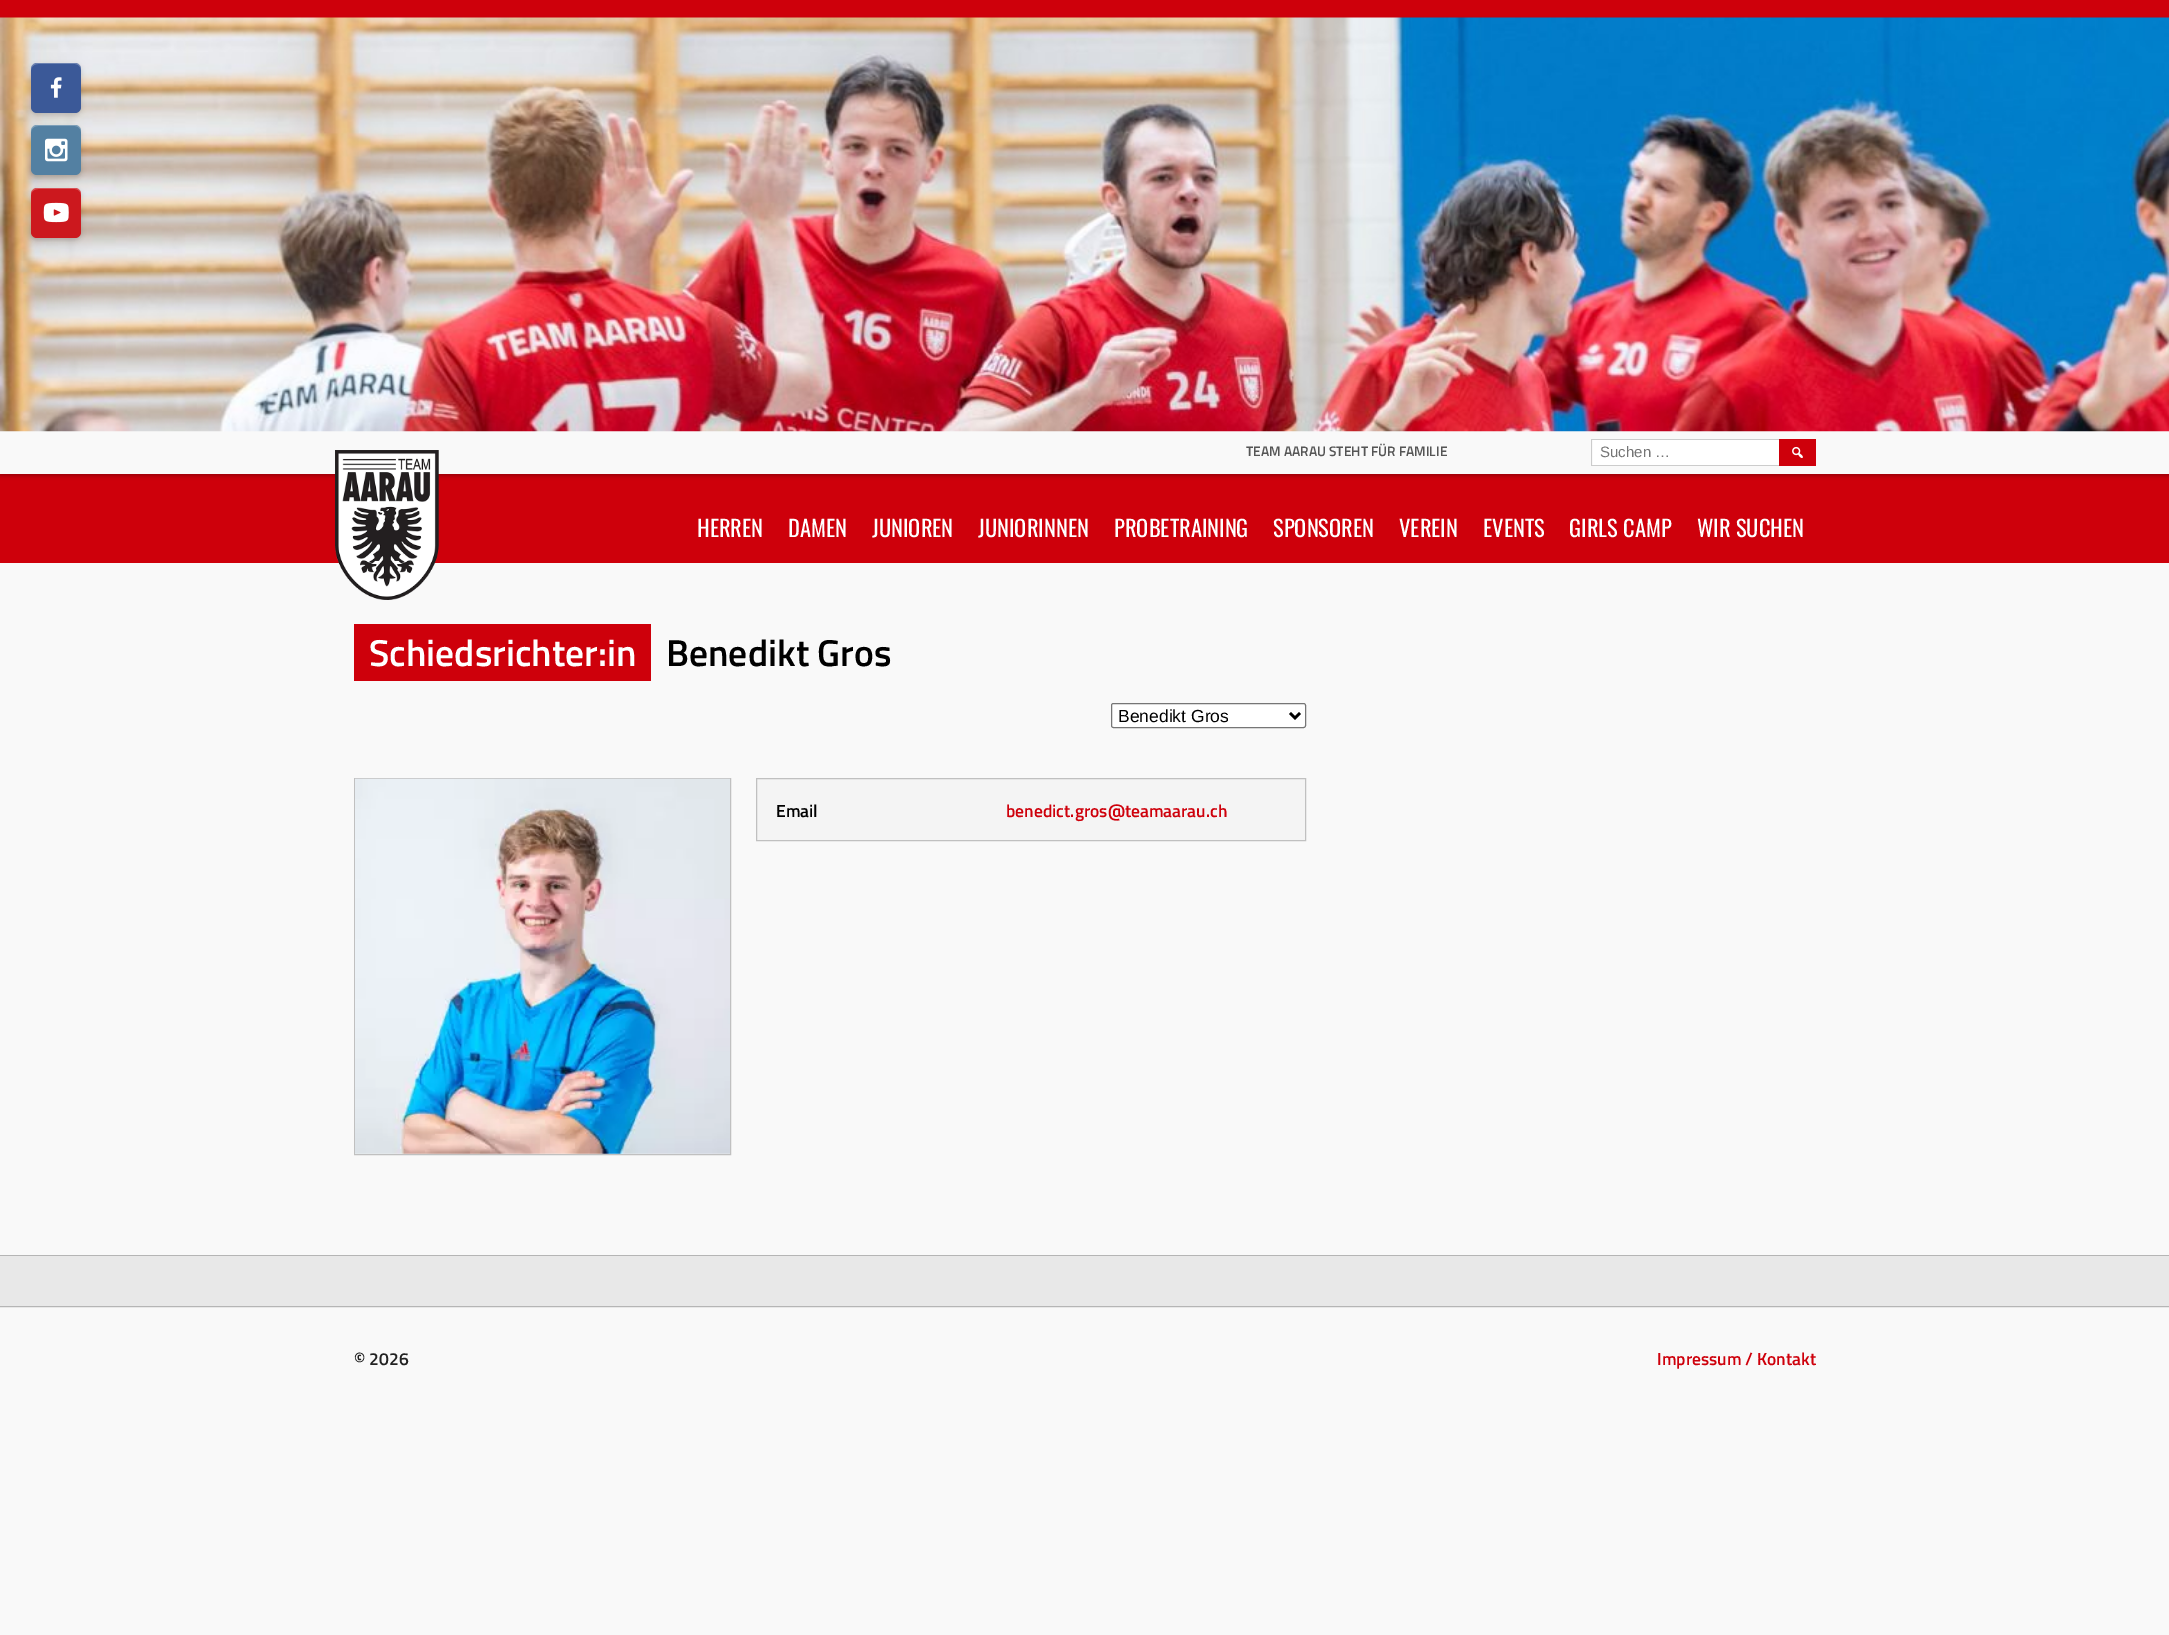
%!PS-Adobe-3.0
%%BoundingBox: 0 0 2169 1635
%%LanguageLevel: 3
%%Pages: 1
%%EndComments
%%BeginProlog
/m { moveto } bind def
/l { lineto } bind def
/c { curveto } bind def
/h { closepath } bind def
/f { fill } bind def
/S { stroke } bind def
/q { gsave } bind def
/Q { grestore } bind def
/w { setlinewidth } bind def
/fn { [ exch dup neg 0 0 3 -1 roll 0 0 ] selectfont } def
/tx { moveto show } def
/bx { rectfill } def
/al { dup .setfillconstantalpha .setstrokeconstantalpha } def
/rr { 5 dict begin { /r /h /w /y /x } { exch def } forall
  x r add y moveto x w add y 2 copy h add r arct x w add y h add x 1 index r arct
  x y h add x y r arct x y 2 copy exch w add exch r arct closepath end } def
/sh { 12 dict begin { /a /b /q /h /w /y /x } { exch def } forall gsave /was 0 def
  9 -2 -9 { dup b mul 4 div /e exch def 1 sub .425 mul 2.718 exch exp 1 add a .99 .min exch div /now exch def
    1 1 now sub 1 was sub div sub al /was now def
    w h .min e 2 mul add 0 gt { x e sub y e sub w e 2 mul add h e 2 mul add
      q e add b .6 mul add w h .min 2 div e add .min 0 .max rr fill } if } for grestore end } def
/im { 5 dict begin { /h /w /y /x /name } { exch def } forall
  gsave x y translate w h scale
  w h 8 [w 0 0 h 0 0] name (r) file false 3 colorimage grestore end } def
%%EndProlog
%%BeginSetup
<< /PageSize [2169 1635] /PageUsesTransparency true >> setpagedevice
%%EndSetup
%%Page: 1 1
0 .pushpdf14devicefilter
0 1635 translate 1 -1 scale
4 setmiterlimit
0.976 setgray
0 0 2169 1635 bx
0.808 0 0.043 setrgbcolor
0 0 2169 563 bx
0 setgray
0 20 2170 456 0 2 0.25 sh
0.976 setgray
0 431 2169 43 bx
(image0.raw) 0 17 2169 415 im
(image1.raw) 335 450 104 150 im
/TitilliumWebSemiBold-SemiBold 13.75 fn
0.333 setgray
(TEAM AARAU STEHT FÜR FAMILIE) 1246 456 tx
1 setgray
1593 440 186 25 bx
0.8 setgray
1591 439 188 1 bx
1591 465 188 1 bx
1591 439 1 27 bx
/LiberationSans-Regular 15 fn
0.459 setgray
(Suchen …) 1600 457 tx
0.808 0 0.043 setrgbcolor
1779 439 37 27 bx
(image2.raw) 1792 446 11 12 im
/Oswald-Regular 22.5 fn
1 setgray
(HERREN) 697 537 tx
(DAMEN) 788 537 tx
(JUNIOREN) 872 537 tx
(JUNIORINNEN) 978 537 tx
(PROBETRAINING) 1114 537 tx
(SPONSOREN) 1273 537 tx
(VEREIN) 1399 537 tx
(EVENTS) 1483 537 tx
(GIRLS CAMP) 1569 537 tx
(WIR SUCHEN) 1697 537 tx
0 setgray
31 65 50 50 6 2.5 0.15 sh
0.231 0.349 0.596 setrgbcolor
31 63 50 50 6 rr f
0.25 al
1 setgray
38 64 m 75 64 l 78 64 81 67 81 70 c 81 62 75 63 69 63 c 43 63 l 37 63 31 62 31 70 c 31 67 34 64 38 64 c h f
1 al
(image3.raw) 50 77 12 21 im
0 setgray
31 128 50 50 6 2.5 0.15 sh
0.325 0.502 0.635 setrgbcolor
31 125 50 50 6 rr f
0.25 al
1 setgray
38 126 m 75 126 l 78 126 81 129 81 132 c 81 124 75 125 69 125 c 43 125 l 37 125 31 124 31 132 c 31 129 34 126 38 126 c h f
1 al
(image4.raw) 45 138 23 24 im
0 setgray
31 190 50 50 6 2.5 0.15 sh
0.8 0.094 0.118 setrgbcolor
31 188 50 50 6 rr f
0.25 al
1 setgray
38 189 m 75 189 l 78 189 81 192 81 195 c 81 187 75 188 69 188 c 43 188 l 37 188 31 187 31 195 c 31 192 34 189 38 189 c h f
1 al
(image5.raw) 43 202 26 21 im
0.808 0 0.043 setrgbcolor
354 624 297 57 bx
/TitilliumWebSemiBold-SemiBold 37.5 fn
1 setgray
(Schiedsrichter:in) 369 666 tx
0 setgray
(Benedikt Gros) 666 666 tx
1 setgray
1111.5 703.5 194 24 2 rr q f Q
0.463 setgray
S
0 setgray
2.5 w
1290 713 m 1295 718 l 1300 713 l S
/LiberationSans-Regular 17.5 fn
(Benedikt Gros) 1118 722 tx
0.753 setgray
1 w
354.5 778.5 376 376 rectstroke
(image6.raw) 355 778 375 376 im
0.957 setgray
756.5 778.5 m 1305.5 778.5 l 1305.5 840.5 l 756.5 840.5 l h q f Q
0.753 setgray
S
/TitilliumWebSemiBold-SemiBold 17.5 fn
0 setgray
(Email) 776 817 tx
0.808 0 0.043 setrgbcolor
(benedict.gros@teamaarau.ch) 1006 817 tx
0.91 setgray
0 1256 2169 52 bx
0.71 setgray
0 1255 2169 1 bx
0 1306 2169 1 bx
0.133 setgray
(© 2026) 354 1365 tx
0.808 0 0.043 setrgbcolor
(Impressum / Kontakt) 1657 1365 tx
.poppdf14devicefilter showpage
%%EOF
